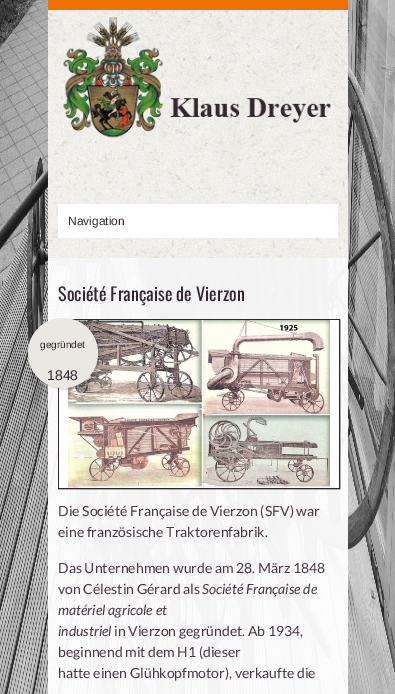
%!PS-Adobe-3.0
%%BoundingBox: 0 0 395 694
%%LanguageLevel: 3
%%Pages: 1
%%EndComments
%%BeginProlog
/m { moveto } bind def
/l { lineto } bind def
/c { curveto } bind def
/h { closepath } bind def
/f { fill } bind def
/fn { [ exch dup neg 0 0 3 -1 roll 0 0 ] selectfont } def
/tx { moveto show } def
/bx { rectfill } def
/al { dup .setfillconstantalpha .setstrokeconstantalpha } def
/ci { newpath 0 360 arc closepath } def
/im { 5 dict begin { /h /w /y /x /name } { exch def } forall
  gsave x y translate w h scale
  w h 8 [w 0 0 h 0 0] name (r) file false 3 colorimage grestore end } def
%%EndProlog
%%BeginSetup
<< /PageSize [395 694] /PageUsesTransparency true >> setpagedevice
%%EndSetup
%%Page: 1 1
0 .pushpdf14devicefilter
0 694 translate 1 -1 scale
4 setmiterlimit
1 setgray
0 0 395 694 bx
(image0.raw) 0 0 395 694 im
(image0.raw) 0 0 395 694 im
(image1.raw) 48 10 300 248 im
0.933 0.439 0 setrgbcolor
48 0 300 10 bx
(image2.raw) 63 17 268 126 im
1 setgray
58 204 280 34 bx
/LiberationSans-Regular 12 fn
0.196 0.153 0.184 setrgbcolor
(Navigation) 68 225 tx
0.95 al
1 setgray
48 258 300 436 bx
/Oswald-Regular 18 fn
1 al
0.196 0.153 0.184 setrgbcolor
(Société Française de Vierzon) 58 301 tx
0.1 al
0 setgray
59 489 m 59 490 l 341 490 l 341 320 l 340 320 l 340 489 l h f
1 al
0.196 0.153 0.184 setrgbcolor
58.5 319.5 281 169 rectstroke
(image3.raw) 59 320 280 168 im
0.1 al
0 setgray
39 379 m 53 393 76 394 90 380 c 104 366 103 343 89 329 c 101 343 101 365 88 378 c 75 391 53 391 39 379 c h f
1 al
0.922 0.906 0.886 setrgbcolor
63 353 35 ci f
/LiberationSans-Regular 10 fn
0.196 0.153 0.184 setrgbcolor
(gegründet) 40 348 tx
/LiberationSans-Regular 14 fn
(1848) 47 380 tx
/Lato-Regular 14 fn
0.282 0.22 0.267 setrgbcolor
(Die Société Française de Vierzon \(SFV\) war) 58 516 tx
(eine französische Traktorenfabrik.) 58 537 tx
(Das Unternehmen wurde am 28. März 1848) 58 573 tx
(von Célestin Gérard als) 58 594 tx
/Lato-Italic 14 fn
(Société Française de) 202 594 tx
(matériel agricole et) 58 615 tx
(industriel) 58 636 tx
/Lato-Regular 14 fn
(in Vierzon gegründet. Ab 1934,) 114 636 tx
(beginnend mit dem H1 \(dieser) 58 657 tx
(hatte einen Glühkopfmotor\), verkaufte die) 58 678 tx
.poppdf14devicefilter showpage
%%EOF
